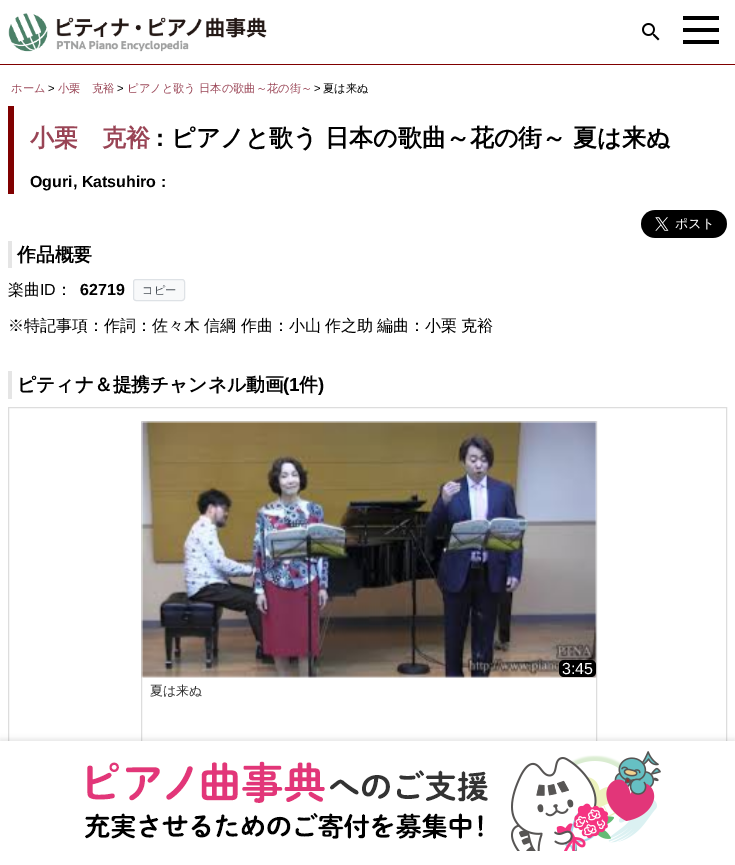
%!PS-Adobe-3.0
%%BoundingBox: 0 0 735 865
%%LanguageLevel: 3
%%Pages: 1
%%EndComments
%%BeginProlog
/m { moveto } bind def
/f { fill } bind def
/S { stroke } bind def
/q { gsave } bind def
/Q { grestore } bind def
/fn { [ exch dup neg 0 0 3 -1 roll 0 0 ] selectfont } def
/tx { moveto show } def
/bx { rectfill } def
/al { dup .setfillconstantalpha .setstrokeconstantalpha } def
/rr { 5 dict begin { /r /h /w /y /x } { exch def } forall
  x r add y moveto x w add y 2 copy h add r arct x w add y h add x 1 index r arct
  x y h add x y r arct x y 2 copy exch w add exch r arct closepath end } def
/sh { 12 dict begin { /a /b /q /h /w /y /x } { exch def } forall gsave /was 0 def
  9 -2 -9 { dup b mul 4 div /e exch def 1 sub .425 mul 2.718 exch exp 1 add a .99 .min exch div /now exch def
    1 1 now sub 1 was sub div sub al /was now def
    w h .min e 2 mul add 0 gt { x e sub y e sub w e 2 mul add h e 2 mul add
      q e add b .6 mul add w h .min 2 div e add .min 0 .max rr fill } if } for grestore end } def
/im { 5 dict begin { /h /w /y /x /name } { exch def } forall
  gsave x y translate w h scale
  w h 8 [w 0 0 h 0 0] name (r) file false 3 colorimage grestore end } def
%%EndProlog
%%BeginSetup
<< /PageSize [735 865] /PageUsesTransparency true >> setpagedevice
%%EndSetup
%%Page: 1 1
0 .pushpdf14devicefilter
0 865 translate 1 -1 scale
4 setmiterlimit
1 setgray
0 0 735 865 bx
(image0.raw) 8 13 259 39 im
(image1.raw) 642 23 18 18 im
0.502 0 0 setrgbcolor
0 64 735 1 bx
0 setgray
683 16 36 4 bx
683 28 36 4 bx
683 40 36 4 bx
/WenQuanYiZenHei-Medium 11.25 fn
0.6 0.267 0.333 setrgbcolor
(ホーム) 11 92 tx
/LiberationSans-Regular 11.25 fn
0 setgray
(>) 48 92 tx
/WenQuanYiZenHei-Medium 11.25 fn
0.6 0.267 0.333 setrgbcolor
(小栗　克裕) 58 92 tx
/LiberationSans-Regular 11.25 fn
0 setgray
(>) 117 92 tx
/WenQuanYiZenHei-Medium 11.25 fn
0.6 0.267 0.333 setrgbcolor
(ピアノと歌う 日本の歌曲～花の街～) 127 92 tx
/LiberationSans-Regular 11.25 fn
0 setgray
(>) 314 92 tx
/WenQuanYiZenHei-Medium 11.25 fn
(夏は来ぬ) 323 92 tx
0.502 0 0 setrgbcolor
8 106 6 88 bx
/WenQuanYiZenHei-Bold 24 fn
0.6 0.267 0.333 setrgbcolor
(小栗　克裕) 30 146 tx
/LiberationSans-Bold 24 fn
0 setgray
(:) 156 146 tx
/WenQuanYiZenHei-Bold 24 fn
(ピアノと歌う 日本の歌曲～花の街～ 夏は来ぬ) 171 146 tx
/LiberationSans-Bold 16 fn
(Oguri, Katsuhiro :) 30 187 tx
(image2.raw) 641 210 86 28 im
0.898 setgray
8 241 4 27 bx
/WenQuanYiZenHei-Bold 18.75 fn
0 setgray
(作品概要) 17 261 tx
/WenQuanYiZenHei-Medium 16 fn
(楽曲) 8 295 tx
/LiberationSans-Regular 16 fn
(ID) 40 295 tx
/WenQuanYiZenHei-Medium 16 fn
(：) 56 295 tx
/LiberationSans-Bold 16 fn
(62719) 80 295 tx
0.973 0.976 0.98 setrgbcolor
133.5 279.5 51 21 2.5 rr q f Q
0.871 0.886 0.902 setrgbcolor
S
/WenQuanYiZenHei-Medium 11.25 fn
0.286 0.314 0.341 setrgbcolor
(コピー) 142 294 tx
/WenQuanYiZenHei-Medium 16 fn
0 setgray
8 331 m -0.5 0 32 (※特記事項：作詞：佐々木 信綱 作曲：小山 作之助 編曲：小栗 克裕) widthshow
0.898 setgray
8 371 4 28 bx
/WenQuanYiZenHei-Bold 18.75 fn
0 setgray
(ピティナ＆提携チャンネル動画) 17 391 tx
/LiberationSans-Bold 18.75 fn
(\(1) 283 391 tx
/WenQuanYiZenHei-Bold 18.75 fn
(件) 299 391 tx
/LiberationSans-Bold 18.75 fn
(\)) 318 391 tx
0.867 setgray
8.5 407.5 718 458 rectstroke
141.5 421.5 455 357 rectstroke
(image3.raw) 141 421 456 257 im
0 setgray
559 660 37 17 5 rr f
/LiberationSans-Regular 16 fn
1 setgray
(3:45) 562 674 tx
/WenQuanYiZenHei-Medium 13 fn
0.2 setgray
(夏は来ぬ) 150 695 tx
0 setgray
0 739 735 124 0 2.5 0.1 sh
1 setgray
0 741 735 124 bx
(image4.raw) 85 751 576 100 im
.poppdf14devicefilter showpage
%%EOF
